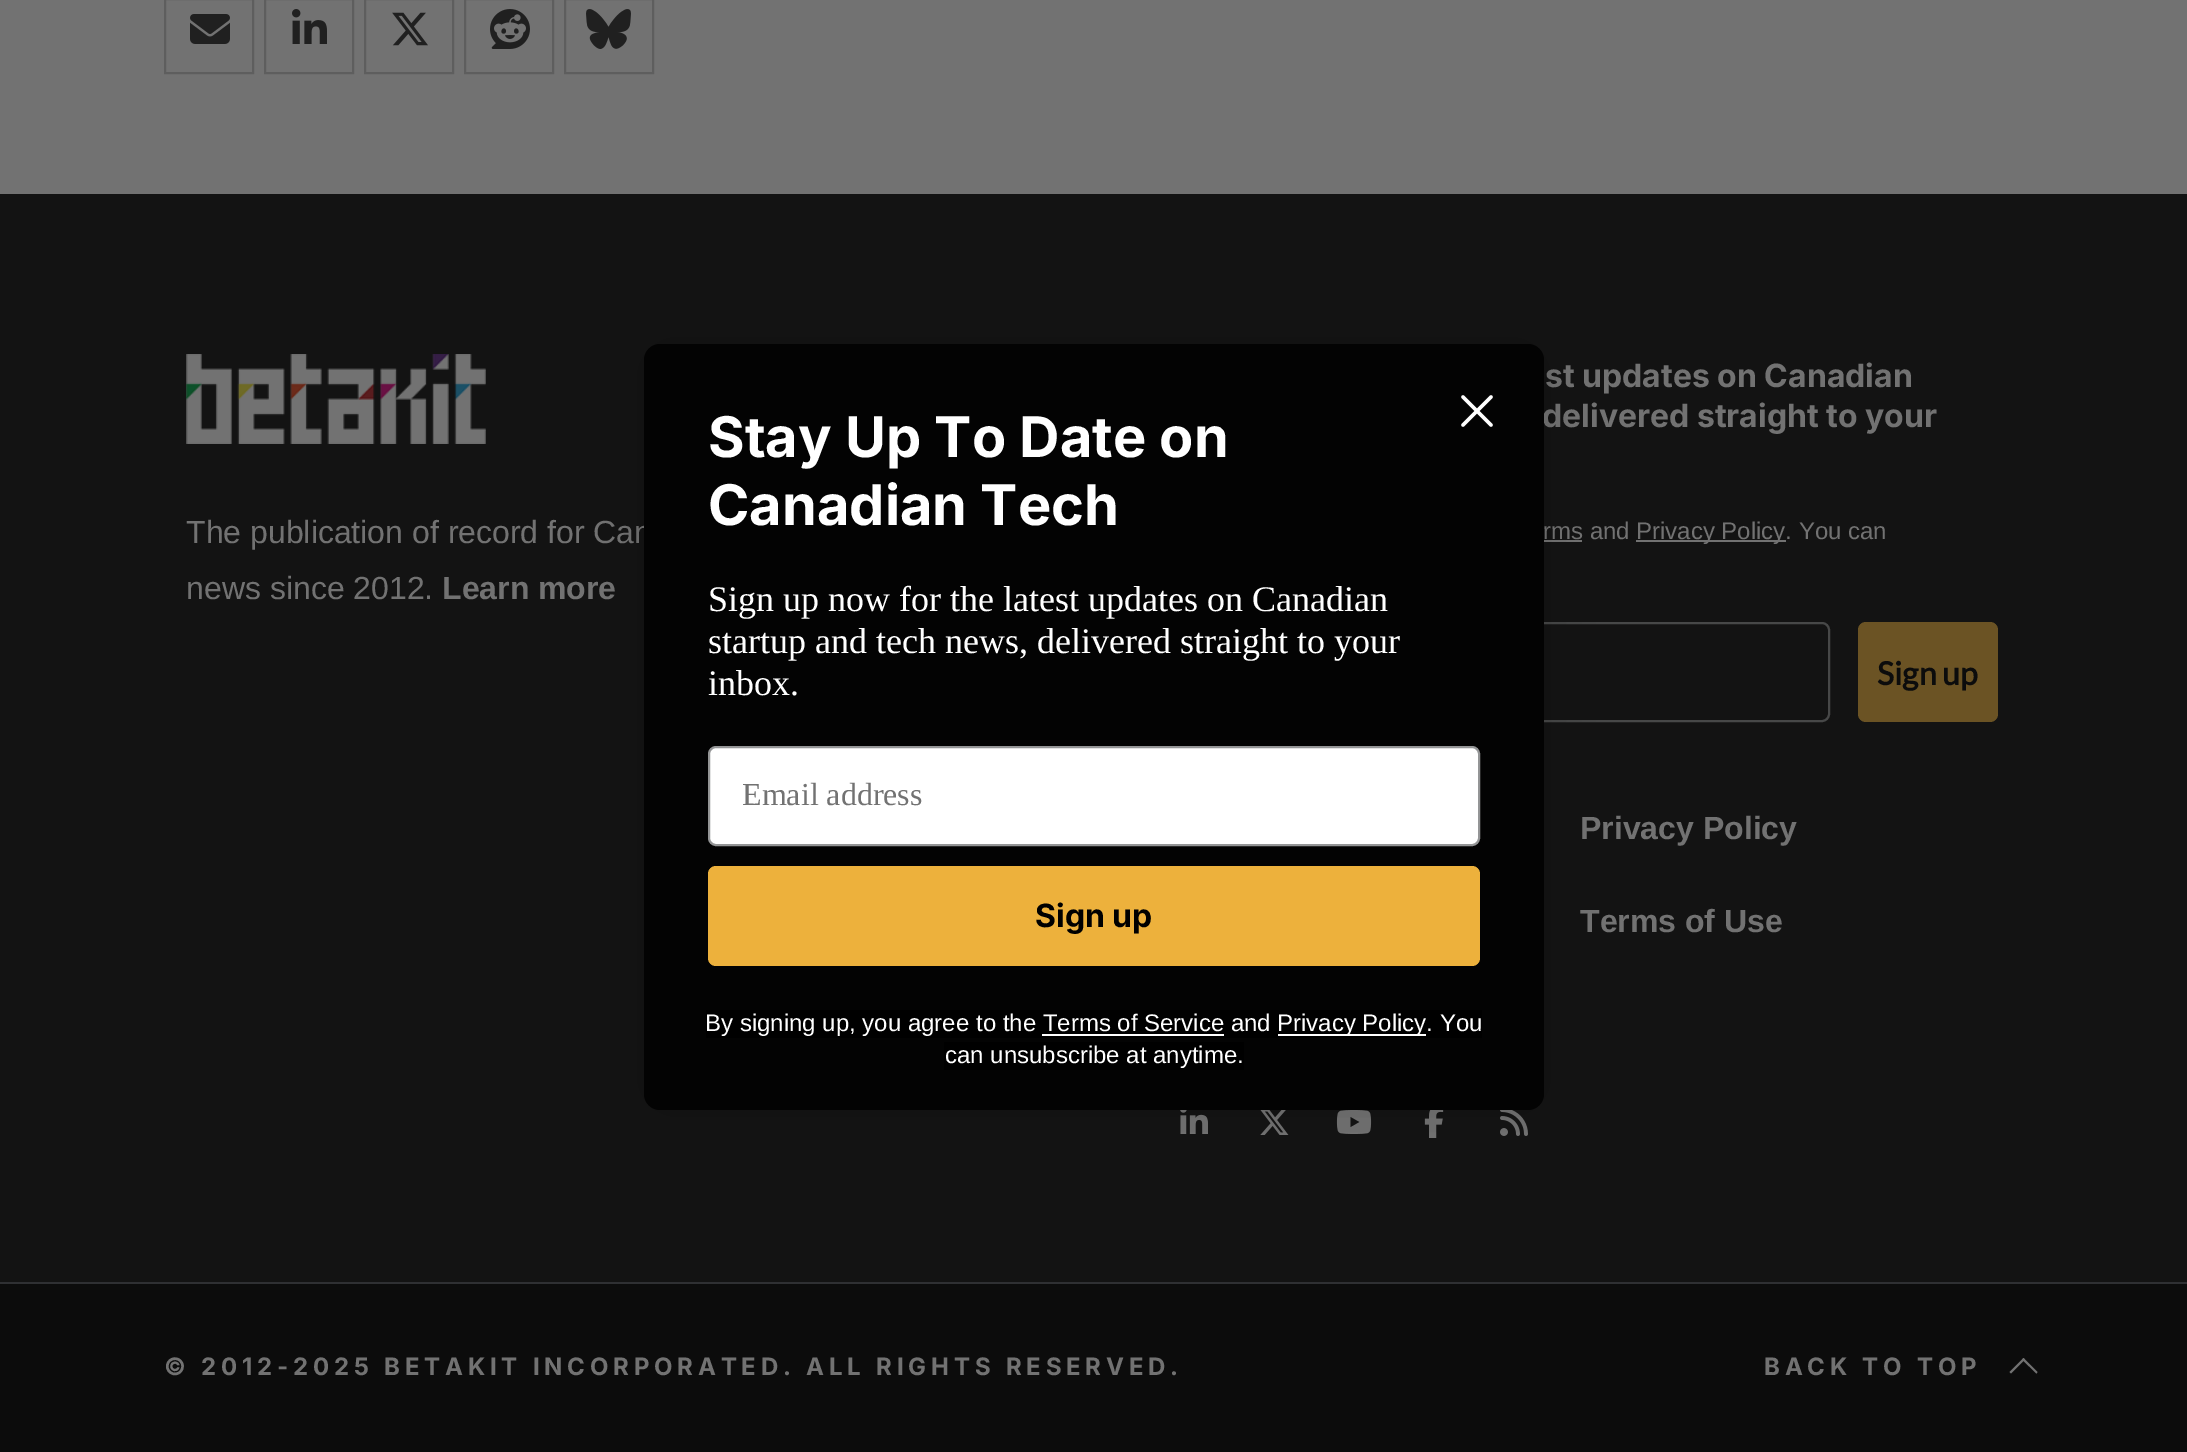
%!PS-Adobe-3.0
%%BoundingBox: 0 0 2187 1452
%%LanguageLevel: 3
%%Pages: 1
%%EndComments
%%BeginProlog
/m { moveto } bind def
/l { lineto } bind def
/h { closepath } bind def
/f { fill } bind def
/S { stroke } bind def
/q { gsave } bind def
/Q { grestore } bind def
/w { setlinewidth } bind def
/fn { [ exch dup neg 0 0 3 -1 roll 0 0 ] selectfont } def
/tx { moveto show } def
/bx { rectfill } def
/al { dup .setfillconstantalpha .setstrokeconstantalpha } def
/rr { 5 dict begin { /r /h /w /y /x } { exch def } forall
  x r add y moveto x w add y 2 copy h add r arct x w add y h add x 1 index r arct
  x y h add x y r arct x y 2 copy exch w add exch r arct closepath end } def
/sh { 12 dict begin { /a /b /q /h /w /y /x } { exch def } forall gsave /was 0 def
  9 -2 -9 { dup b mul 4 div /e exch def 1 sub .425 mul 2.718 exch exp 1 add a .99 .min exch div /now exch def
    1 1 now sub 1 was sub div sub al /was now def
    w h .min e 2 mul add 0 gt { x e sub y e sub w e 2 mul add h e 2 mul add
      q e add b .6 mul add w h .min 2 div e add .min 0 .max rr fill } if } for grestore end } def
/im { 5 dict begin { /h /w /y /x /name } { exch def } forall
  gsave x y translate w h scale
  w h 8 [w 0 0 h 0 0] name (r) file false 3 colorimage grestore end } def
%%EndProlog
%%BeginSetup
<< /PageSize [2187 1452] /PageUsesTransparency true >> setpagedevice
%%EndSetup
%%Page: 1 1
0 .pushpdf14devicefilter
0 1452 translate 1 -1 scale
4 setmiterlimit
0.447 setgray
0 0 2187 1452 bx
0.369 setgray
2 w
165 -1 88 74 rectstroke
(image0.raw) 190 14 40 30 im
265 -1 88 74 rectstroke
(image1.raw) 292 9 35 35 im
365 -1 88 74 rectstroke
(image2.raw) 392 12 36 34 im
465 -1 88 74 rectstroke
(image3.raw) 490 9 40 40 im
565 -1 88 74 rectstroke
(image4.raw) 586 9 45 40 im
0.075 setgray
0 194 2187 1088 bx
(image5.raw) 186 354 300 90 im
/LiberationSans-Regular 32 fn
0.447 setgray
(The publication of record for Can) 186 543 tx
(news since 2012.) 186 599 tx
/LiberationSans-Bold 32 fn
(Learn more) 442 599 tx
/Inter-Bold 32 fn
(st updates on Canadian) 1545 387 tx
(delivered straight to your) 1542 427 tx
/LiberationSans-Regular 24 fn
(rms and) 1543 539 tx
1544 540 38 2 bx
1636 540 150 2 bx
(Privacy Policy. You can) 1636 539 tx
0.278 0.282 0.282 setrgbcolor
1177 623 652 98 7 rr S
0.42 0.325 0.141 setrgbcolor
1858 622 140 100 8 rr f
/Lato-Bold 32 fn
0.047 setgray
(Sign up) 1877 685 tx
/LiberationSans-Bold 32 fn
0.447 setgray
(Privacy Policy) 1580 839 tx
(Terms of Use) 1580 932 tx
(image6.raw) 1180 1110 28 24 im
(image7.raw) 1260 1110 29 25 im
(image8.raw) 1336 1110 36 24 im
(image9.raw) 1424 1110 20 28 im
(image10.raw) 1500 1110 28 26 im
0.047 setgray
0 1284 2187 168 bx
0.184 0.188 0.2 setrgbcolor
0 1282 2187 2 bx
/Inter-Bold 24 fn
0.447 setgray
164 1375 m 4.8 0 (© 2012-2025 BETAKIT INCORPORATED. ALL RIGHTS RESERVED.) ashow
1764 1375 m 4.8 0 (BACK TO TOP) ashow
2009.5 1372 m 2023.5 1358 l 2025 1359.5 l 2011 1373.5 l h f
2022 1359.5 m 2023.5 1358 l 2037.5 1372 l 2036.5 1373.5 l h f
0 setgray
644 344 900 766 16 30 0.15 sh
0.012 setgray
644 344 900 766 16 rr f
1 setgray
3.5 w
1 setlinecap
1 setlinejoin
1463 397 m 1491 425 l 1463 425 m 1491 397 l h S
/Inter-Bold 56 fn
(Stay Up To Date on) 708 457 tx
(Canadian Tech) 708 525 tx
/LiberationSerif-Regular 36 fn
(Sign up now for the latest updates on Canadian) 708 611 tx
(startup and tech news, delivered straight to your) 708 653 tx
(inbox.) 708 695 tx
709 747 770 98 7 rr q f Q
0.58 0.584 0.588 setrgbcolor
2 w
0 setlinecap
0 setlinejoin
S
/LiberationSerif-Regular 32 fn
0.447 setgray
(Email address) 742 805 tx
0.929 0.694 0.235 setrgbcolor
708 866 772 100 8 rr f
/Inter-Bold 32 fn
0 setgray
(Sign up) 1035 927 tx
706 1010 776 28 bx
/LiberationSans-Regular 24 fn
1 setgray
(By signing up, you agree to the Terms of Service and) 705 1031 tx
1042 1034 182 2 bx
1278 1034 148 2 bx
(Privacy Policy. You) 1277 1031 tx
0 setgray
944 1042 300 28 bx
1 setgray
(can unsubscribe at anytime.) 945 1063 tx
.poppdf14devicefilter showpage
%%EOF
